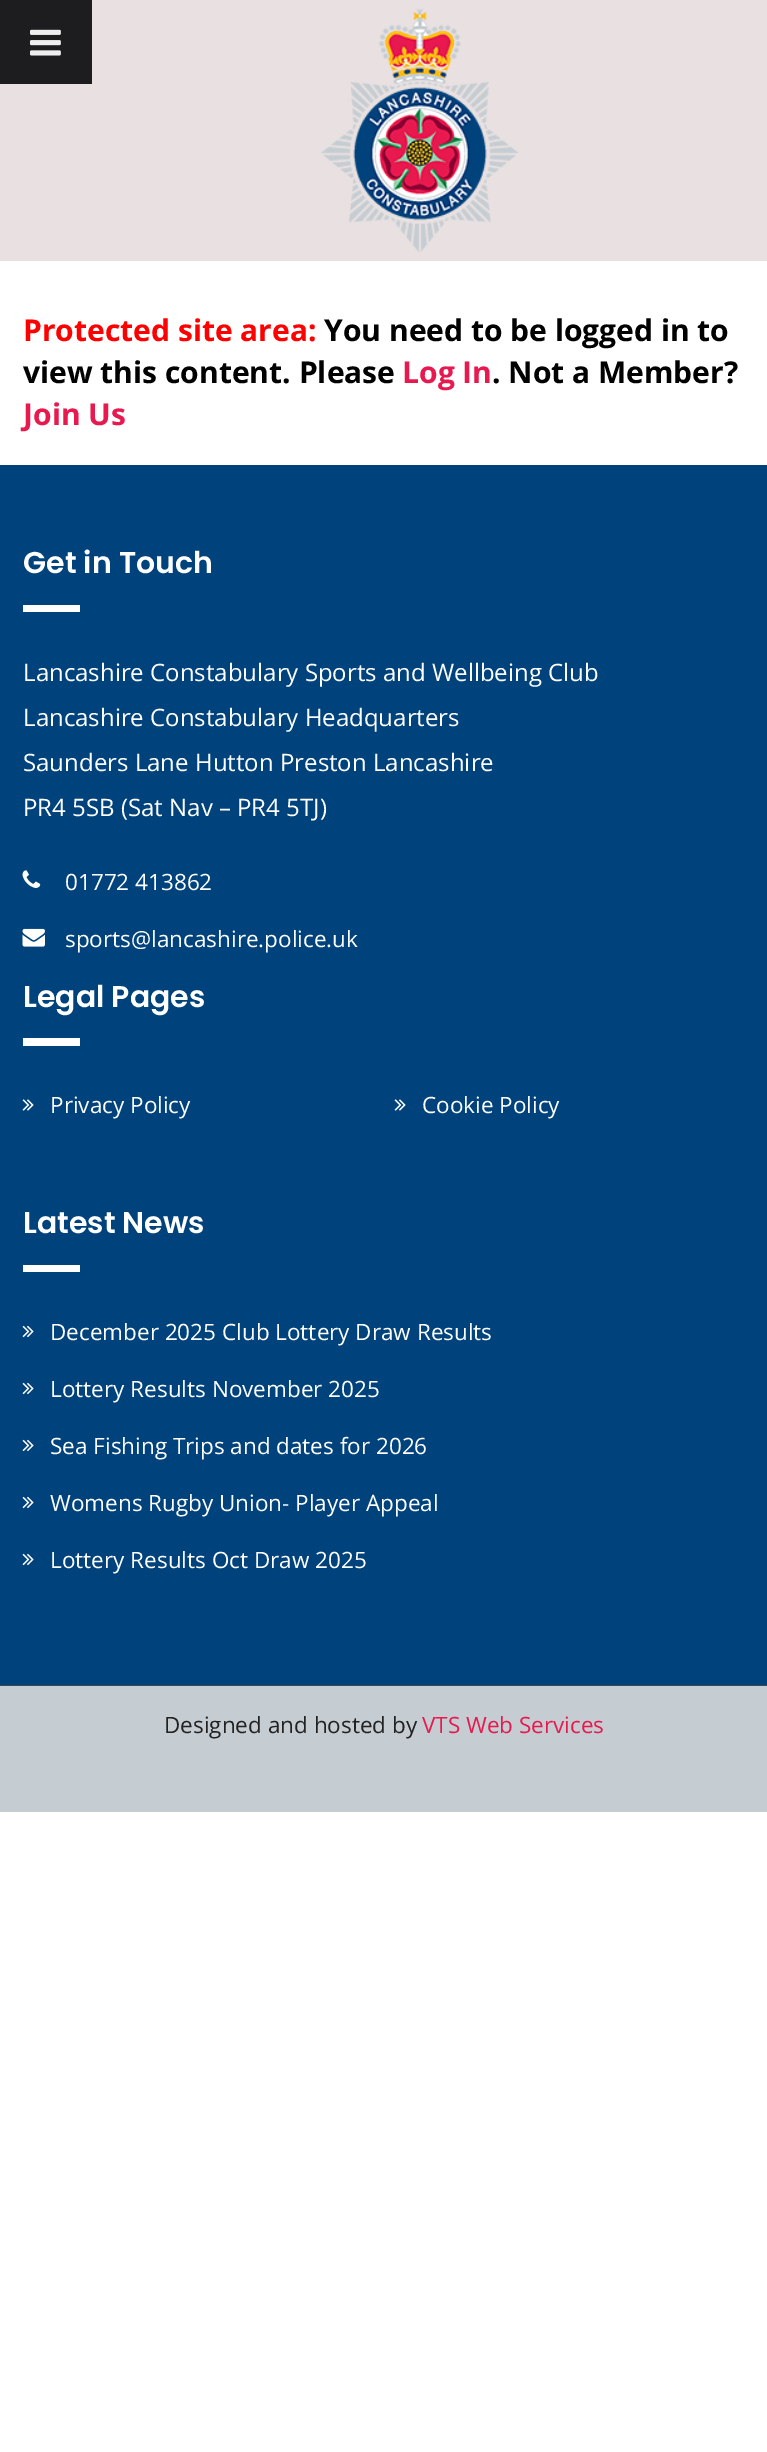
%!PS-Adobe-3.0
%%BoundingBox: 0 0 767 2452
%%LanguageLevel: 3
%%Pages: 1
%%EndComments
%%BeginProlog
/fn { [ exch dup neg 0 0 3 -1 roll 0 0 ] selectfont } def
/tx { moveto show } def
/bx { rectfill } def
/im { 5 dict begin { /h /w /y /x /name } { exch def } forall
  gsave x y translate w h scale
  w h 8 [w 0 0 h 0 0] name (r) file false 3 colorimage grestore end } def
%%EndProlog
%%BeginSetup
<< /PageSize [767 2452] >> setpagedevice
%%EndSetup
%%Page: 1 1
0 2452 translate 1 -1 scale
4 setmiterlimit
1 setgray
0 0 767 2452 bx
0.914 0.882 0.882 setrgbcolor
0 0 767 261 bx
(image0.raw) 321 8 198 245 im
0.114 0.114 0.125 setrgbcolor
0 0 92 84 bx
(image1.raw) 30 29 31 27 im
/OpenSans-Bold 30 fn
1 0 0 setrgbcolor
(Protected site area:) 23 341 tx
0.004 setgray
(You need to be logged in to) 324 341 tx
(view this content. Please) 23 383 tx
0.906 0.098 0.31 setrgbcolor
(Log In) 402 383 tx
0.004 setgray
(. Not a Member?) 492 383 tx
0.906 0.098 0.31 setrgbcolor
(Join Us) 23 425 tx
0 0.263 0.486 setrgbcolor
0 465 767 1220 bx
0.239 0.278 0.333 setrgbcolor
0 1685 767 1 bx
/Poppins-SemiBold 30 fn
1 setgray
(Get in Touch) 23 573 tx
23 605 57 7 bx
/OpenSans-Regular 24 fn
(Lancashire Constabulary Sports and Wellbeing Club) 23 681 tx
(Lancashire Constabulary Headquarters) 23 726 tx
(Saunders Lane Hutton Preston Lancashire) 23 771 tx
(PR4 5SB \(Sat Nav – PR4 5TJ\)) 23 816 tx
(image2.raw) 22 870 19 18 im
/OpenSans-Regular 22.5 fn
(01772 413862) 65 890 tx
(image3.raw) 22 928 23 19 im
(sports@lancashire.police.uk) 65 947 tx
/Poppins-SemiBold 30 fn
(Legal Pages) 23 1007 tx
23 1038 57 8 bx
(image4.raw) 22 1099 12 12 im
/OpenSans-Regular 22.5 fn
(Privacy Policy) 50 1113 tx
(image4.raw) 394 1099 12 12 im
(Cookie Policy) 422 1113 tx
/Poppins-SemiBold 30 fn
(Latest News) 23 1233 tx
23 1265 57 7 bx
(image5.raw) 22 1325 12 13 im
/OpenSans-Regular 22.5 fn
(December 2025 Club Lottery Draw Results) 50 1340 tx
(image5.raw) 22 1382 12 13 im
(Lottery Results November 2025) 50 1397 tx
(image5.raw) 22 1439 12 13 im
(Sea Fishing Trips and dates for 2026) 50 1454 tx
(image5.raw) 22 1496 12 13 im
(Womens Rugby Union- Player Appeal) 50 1511 tx
(image5.raw) 22 1553 12 13 im
(Lottery Results Oct Draw 2025) 50 1568 tx
0.776 0.804 0.824 setrgbcolor
0 1686 767 126 bx
0.133 setgray
(Designed and hosted by) 164 1733 tx
0.906 0.098 0.31 setrgbcolor
(VTS Web Services) 422 1733 tx
showpage
%%EOF
